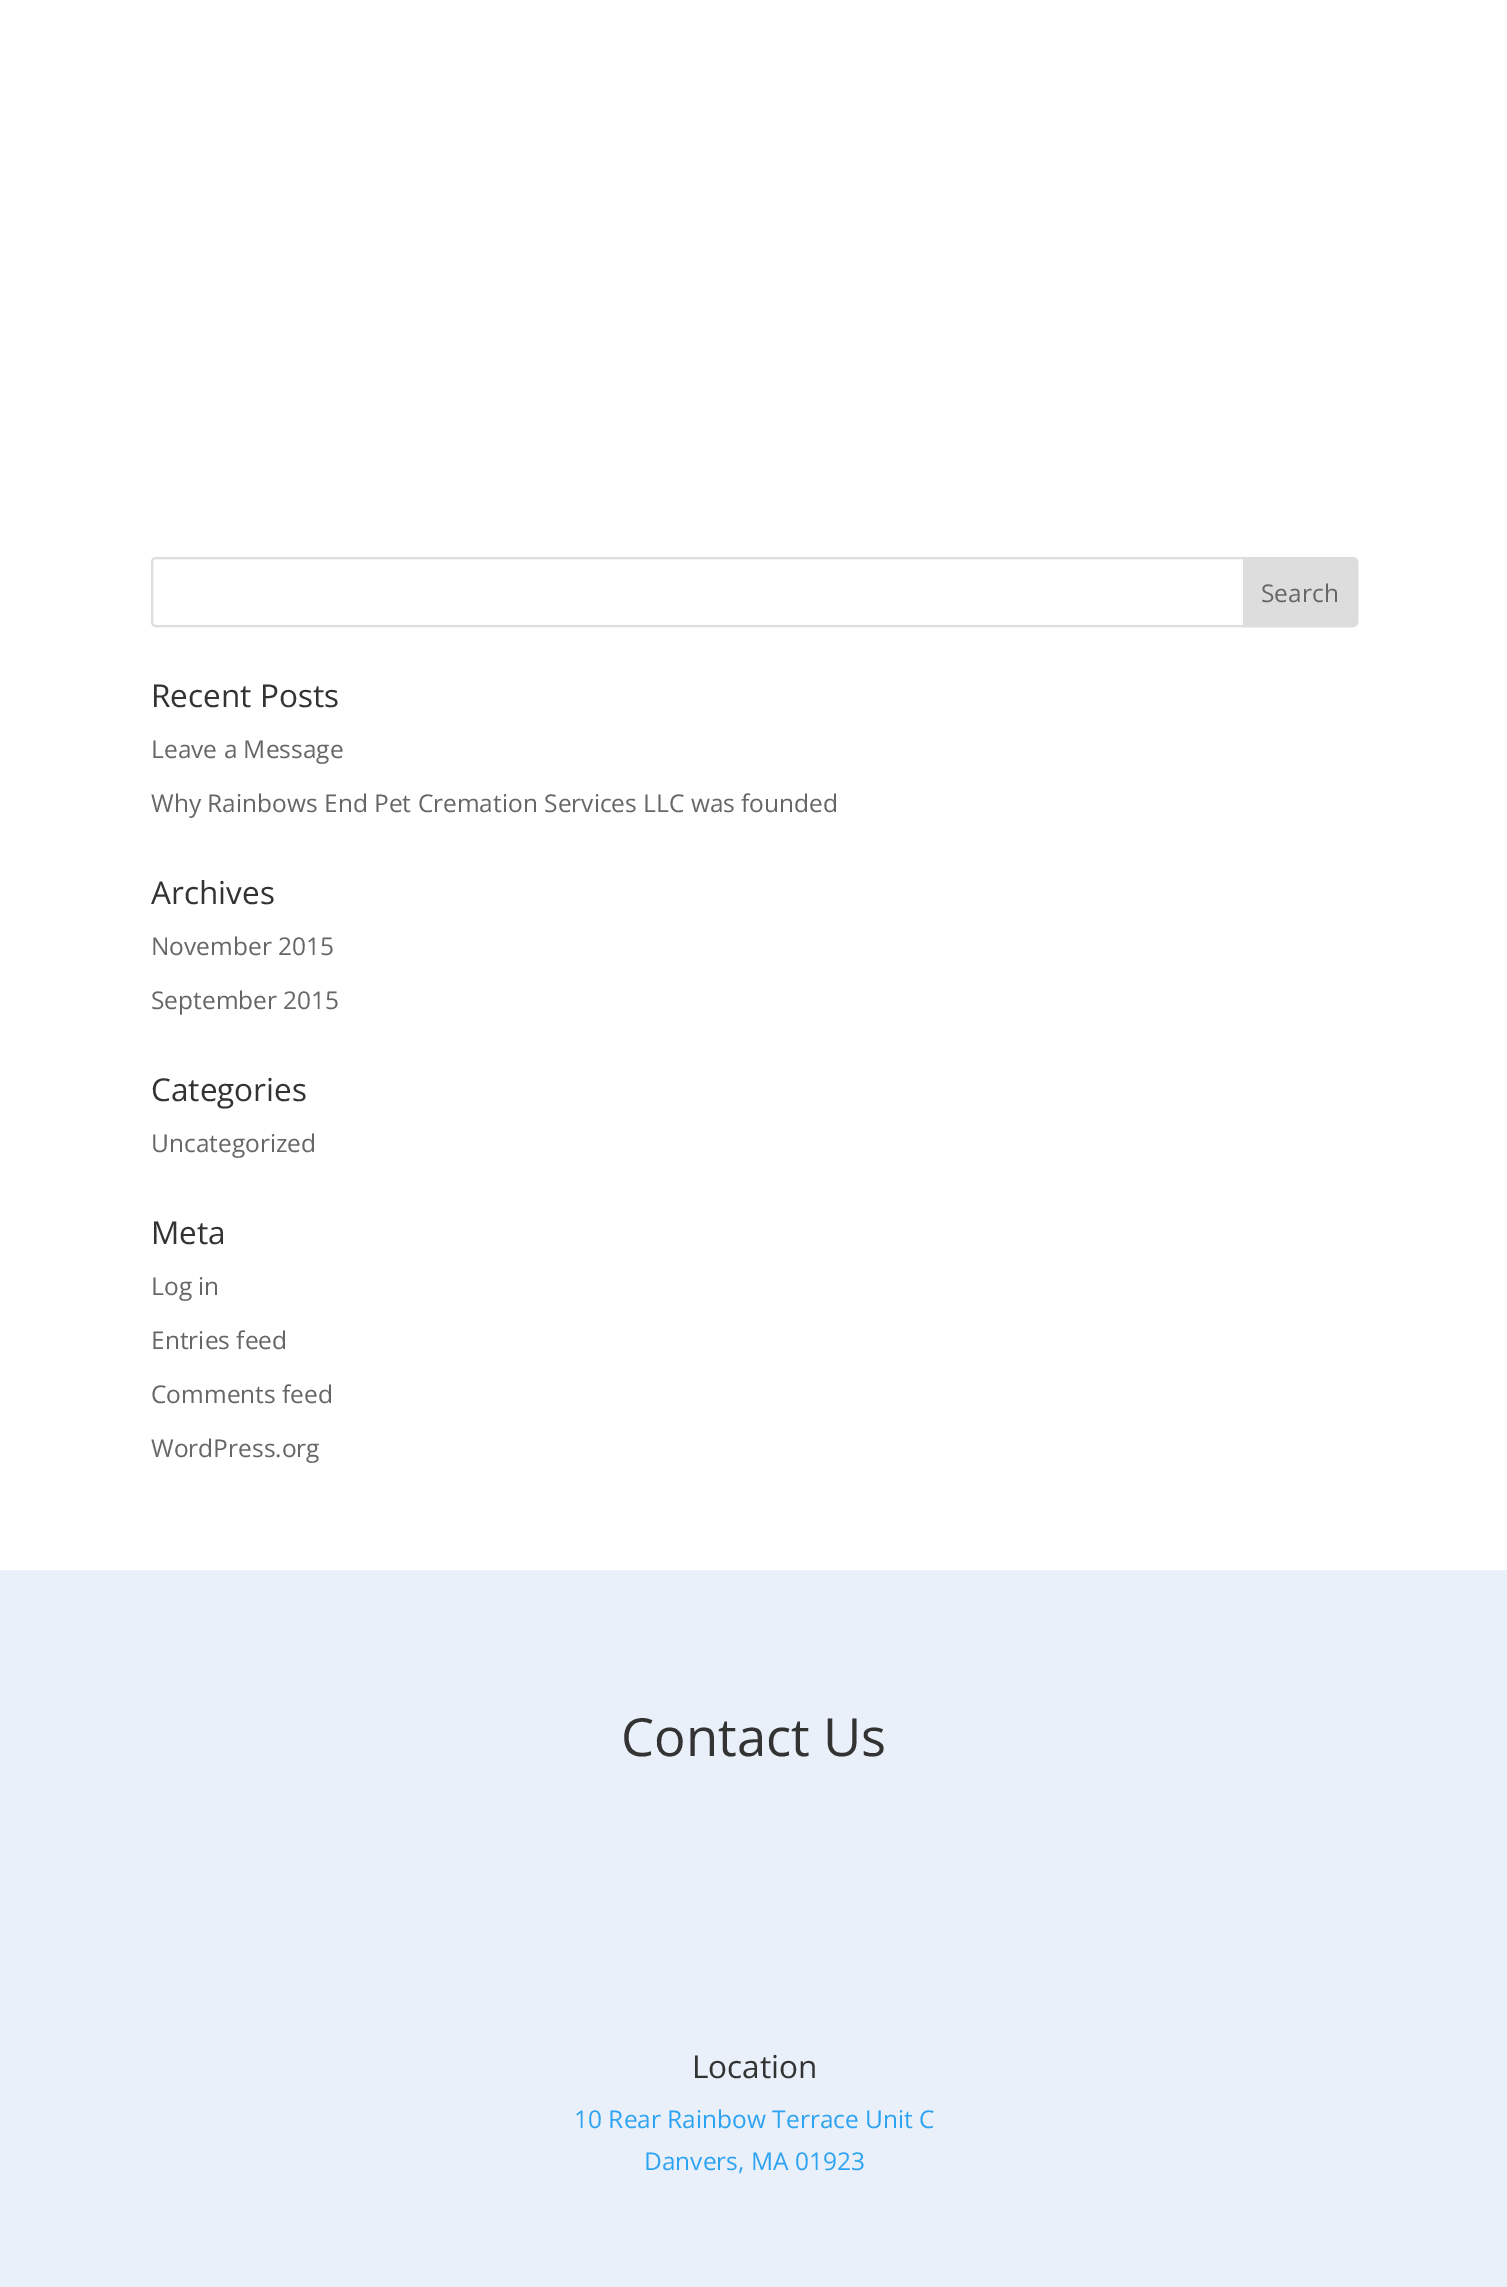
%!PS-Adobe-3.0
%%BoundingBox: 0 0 1507 2287
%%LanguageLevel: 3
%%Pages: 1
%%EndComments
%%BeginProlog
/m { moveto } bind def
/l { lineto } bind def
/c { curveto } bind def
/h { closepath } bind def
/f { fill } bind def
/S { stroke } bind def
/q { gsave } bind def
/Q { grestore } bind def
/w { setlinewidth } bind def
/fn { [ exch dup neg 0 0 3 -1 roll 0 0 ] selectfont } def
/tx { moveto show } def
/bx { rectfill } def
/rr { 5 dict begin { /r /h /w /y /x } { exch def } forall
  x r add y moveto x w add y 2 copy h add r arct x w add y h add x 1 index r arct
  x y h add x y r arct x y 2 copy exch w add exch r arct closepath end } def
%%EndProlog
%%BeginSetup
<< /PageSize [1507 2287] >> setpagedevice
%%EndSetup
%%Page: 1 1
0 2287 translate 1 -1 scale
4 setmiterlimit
1 setgray
0 0 1507 2287 bx
0.867 setgray
2 w
152 558 1205 68 4 rr S
1244 558 m 1353 558 l 1355 558 1357 560 1357 562 c 1357 622 l 1357 624 1355 626 1353 626 c 1244 626 l h q f Q
S
/OpenSans-Regular 24.5 fn
0.4 setgray
(Search) 1261 602 tx
/OpenSans-Regular 31.5 fn
0.2 setgray
(Recent Posts) 151 707 tx
/OpenSans-Regular 24.5 fn
0.4 setgray
(Leave a Message) 151 758 tx
(Why Rainbows End Pet Cremation Services LLC was founded) 151 812 tx
/OpenSans-Regular 31.5 fn
0.2 setgray
(Archives) 151 904 tx
/OpenSans-Regular 24.5 fn
0.4 setgray
(November 2015) 151 955 tx
(September 2015) 151 1009 tx
/OpenSans-Regular 31.5 fn
0.2 setgray
(Categories) 151 1101 tx
/OpenSans-Regular 24.5 fn
0.4 setgray
(Uncategorized) 151 1152 tx
/OpenSans-Regular 31.5 fn
0.2 setgray
(Meta) 151 1244 tx
/OpenSans-Regular 24.5 fn
0.4 setgray
(Log in) 151 1295 tx
(Entries feed) 151 1349 tx
(Comments feed) 151 1403 tx
(WordPress.org) 151 1457 tx
0.914 0.941 0.976 setrgbcolor
0 1570 1507 717 bx
/OpenSans-Regular 52.5 fn
0.2 setgray
(Contact Us) 621 1756 tx
/OpenSans-Regular 31.5 fn
(Location) 692 2078 tx
/OpenSans-Regular 24.5 fn
0.18 0.639 0.949 setrgbcolor
(10 Rear Rainbow Terrace Unit C) 574 2128 tx
(Danvers, MA 01923) 644 2170 tx
showpage
%%EOF
